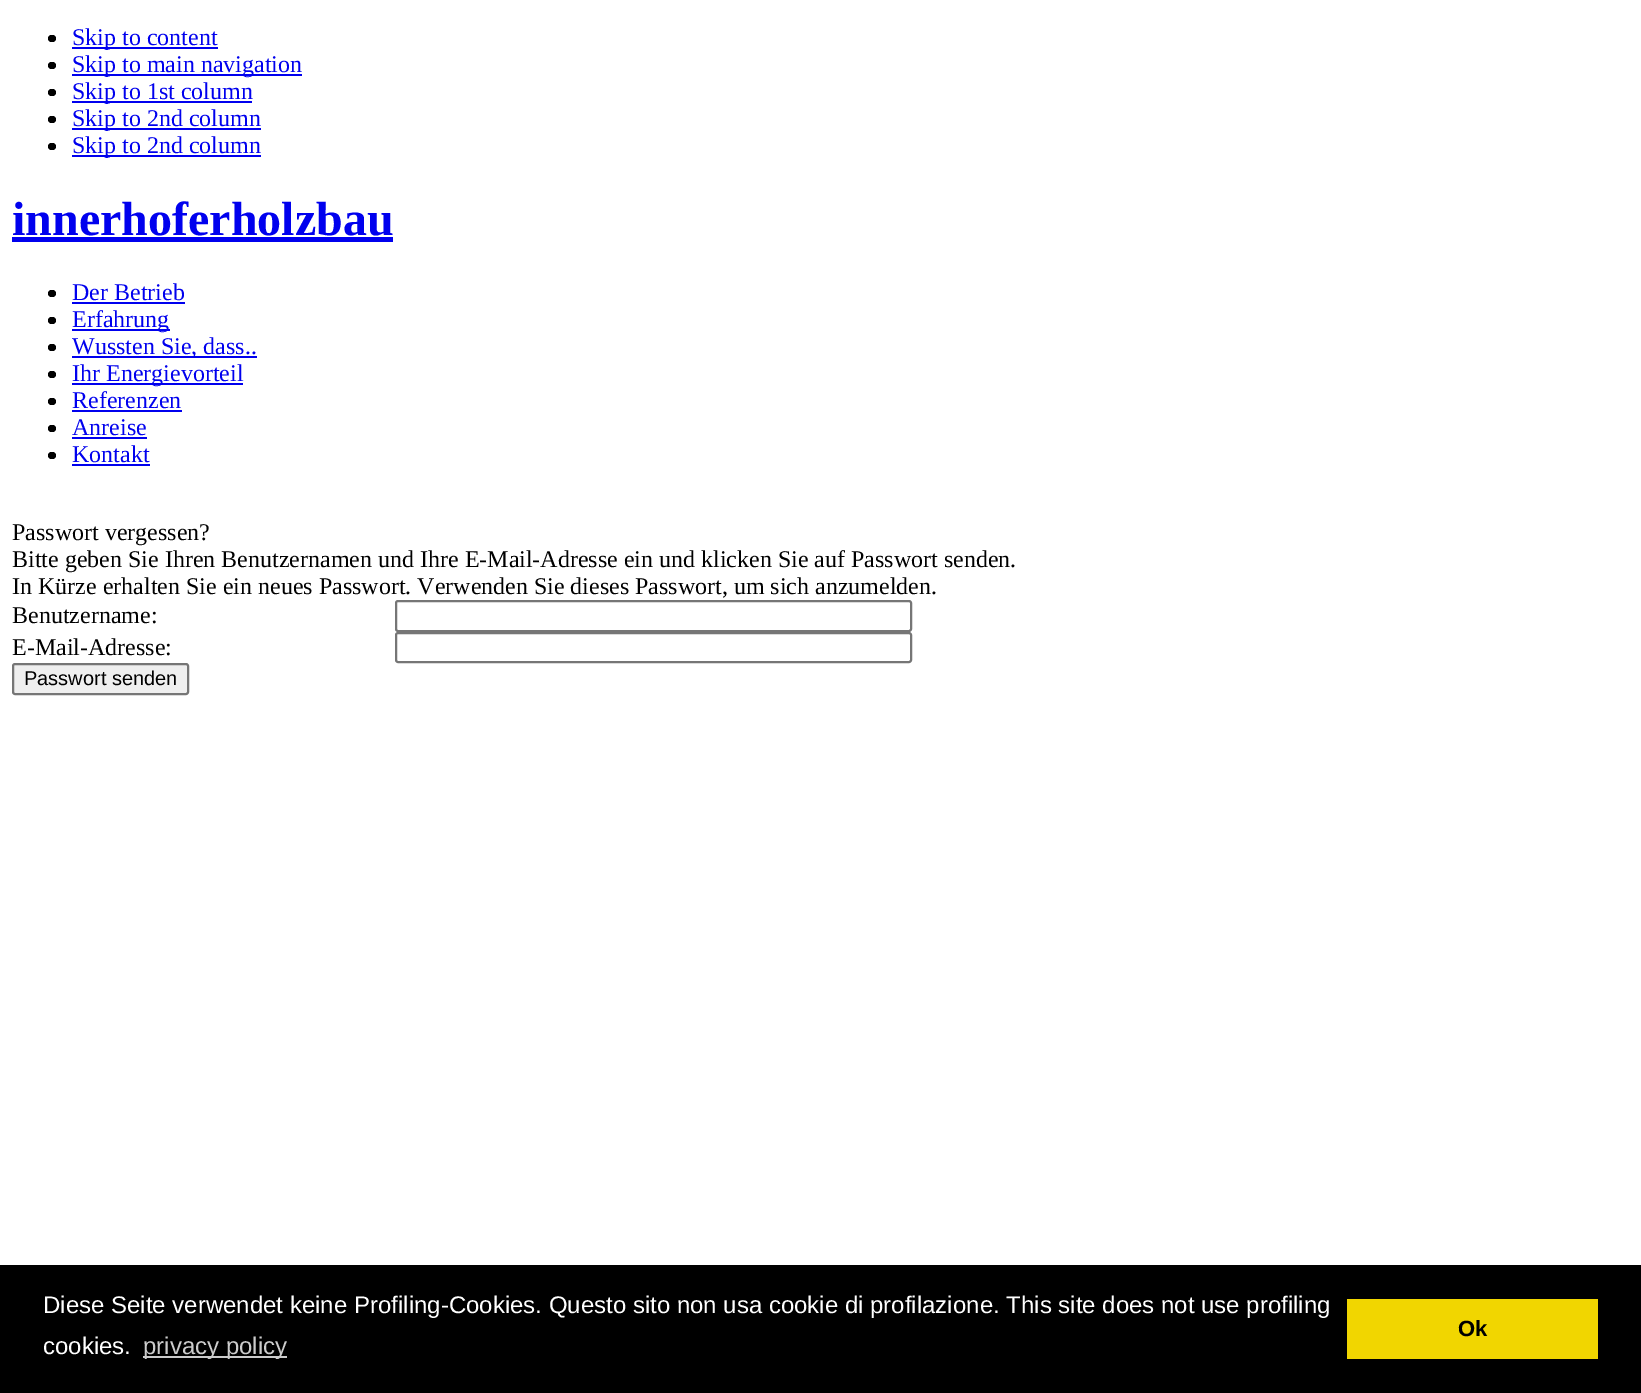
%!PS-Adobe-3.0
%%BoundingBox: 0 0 1641 1393
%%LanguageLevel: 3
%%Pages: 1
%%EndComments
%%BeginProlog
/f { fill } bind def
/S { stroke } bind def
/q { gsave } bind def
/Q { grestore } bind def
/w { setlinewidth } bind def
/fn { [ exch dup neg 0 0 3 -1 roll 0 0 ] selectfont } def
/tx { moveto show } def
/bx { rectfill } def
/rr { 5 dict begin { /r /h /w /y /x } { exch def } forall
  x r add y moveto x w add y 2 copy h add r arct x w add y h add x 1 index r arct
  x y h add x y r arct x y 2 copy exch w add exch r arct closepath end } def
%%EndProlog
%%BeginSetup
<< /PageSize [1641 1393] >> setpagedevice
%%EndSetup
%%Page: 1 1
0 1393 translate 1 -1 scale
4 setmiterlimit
1 setgray
0 0 1641 1393 bx
0 setgray
48 35 8 7 3.5 rr f
0 0 0.933 setrgbcolor
72 47 146 2 bx
/LiberationSerif-Regular 24 fn
(Skip to content) 72 45 tx
0 setgray
48 62 8 7 3.5 rr f
0 0 0.933 setrgbcolor
72 74 230 2 bx
(Skip to main navigation) 72 72 tx
0 setgray
48 89 8 7 3.5 rr f
0 0 0.933 setrgbcolor
72 101 180 2 bx
(Skip to 1st column) 72 99 tx
0 setgray
48 116 8 7 3.5 rr f
0 0 0.933 setrgbcolor
72 128 189 2 bx
(Skip to 2nd column) 72 126 tx
0 setgray
48 143 8 7 3.5 rr f
0 0 0.933 setrgbcolor
72 155 189 2 bx
(Skip to 2nd column) 72 153 tx
/LiberationSerif-Bold 48 fn
(innerhoferholzbau) 12 235 tx
12 237 381 5 bx
0 setgray
48 290 8 7 3.5 rr f
/LiberationSerif-Regular 24 fn
0 0 0.933 setrgbcolor
(Der Betrieb) 72 300 tx
72 302 113 2 bx
0 setgray
48 317 8 7 3.5 rr f
0 0 0.933 setrgbcolor
72 329 98 2 bx
(Erfahrung) 72 327 tx
0 setgray
48 344 8 7 3.5 rr f
0 0 0.933 setrgbcolor
72 356 185 2 bx
(Wussten Sie, dass..) 72 354 tx
0 setgray
48 371 8 7 3.5 rr f
0 0 0.933 setrgbcolor
72 383 171 2 bx
(Ihr Energievorteil) 72 381 tx
0 setgray
48 398 8 7 3.5 rr f
0 0 0.933 setrgbcolor
(Referenzen) 72 408 tx
72 410 110 2 bx
0 setgray
48 425 8 7 3.5 rr f
0 0 0.933 setrgbcolor
(Anreise) 72 435 tx
72 437 75 2 bx
0 setgray
48 452 8 7 3.5 rr f
0 0 0.933 setrgbcolor
(Kontakt) 72 462 tx
72 464 78 2 bx
0 setgray
(Passwort vergessen?) 12 540 tx
(Bitte geben Sie Ihren Benutzernamen und Ihre E-Mail-Adresse ein und klicken Sie auf Passwort senden.) 12 567 tx
(In Kürze erhalten Sie ein neues Passwort. Verwenden Sie dieses Passwort, um sich anzumelden.) 12 594 tx
(Benutzername:) 12 623 tx
0.463 setgray
2 w
396 601 515 30 2 rr S
0 setgray
(E-Mail-Adresse:) 12 655 tx
0.463 setgray
396 633 515 29 2 rr S
0.937 setgray
13 664 175 30 2 rr q f Q
0.463 setgray
S
/LiberationSans-Regular 20 fn
0 setgray
(Passwort senden) 24 685 tx
0 1265 1641 128 bx
/LiberationSans-Regular 24 fn
1 setgray
(Diese Seite verwendet keine Profiling-Cookies. Questo sito non usa cookie di profilazione. This site does not use profiling) 43 1313 tx
(cookies.) 43 1354 tx
0.8 setgray
143 1356 144 2 bx
(privacy policy) 143 1354 tx
0.945 0.839 0 setrgbcolor
1347 1299 251 60 bx
/LiberationSans-Bold 22 fn
0 setgray
(Ok) 1458 1336 tx
showpage
%%EOF
